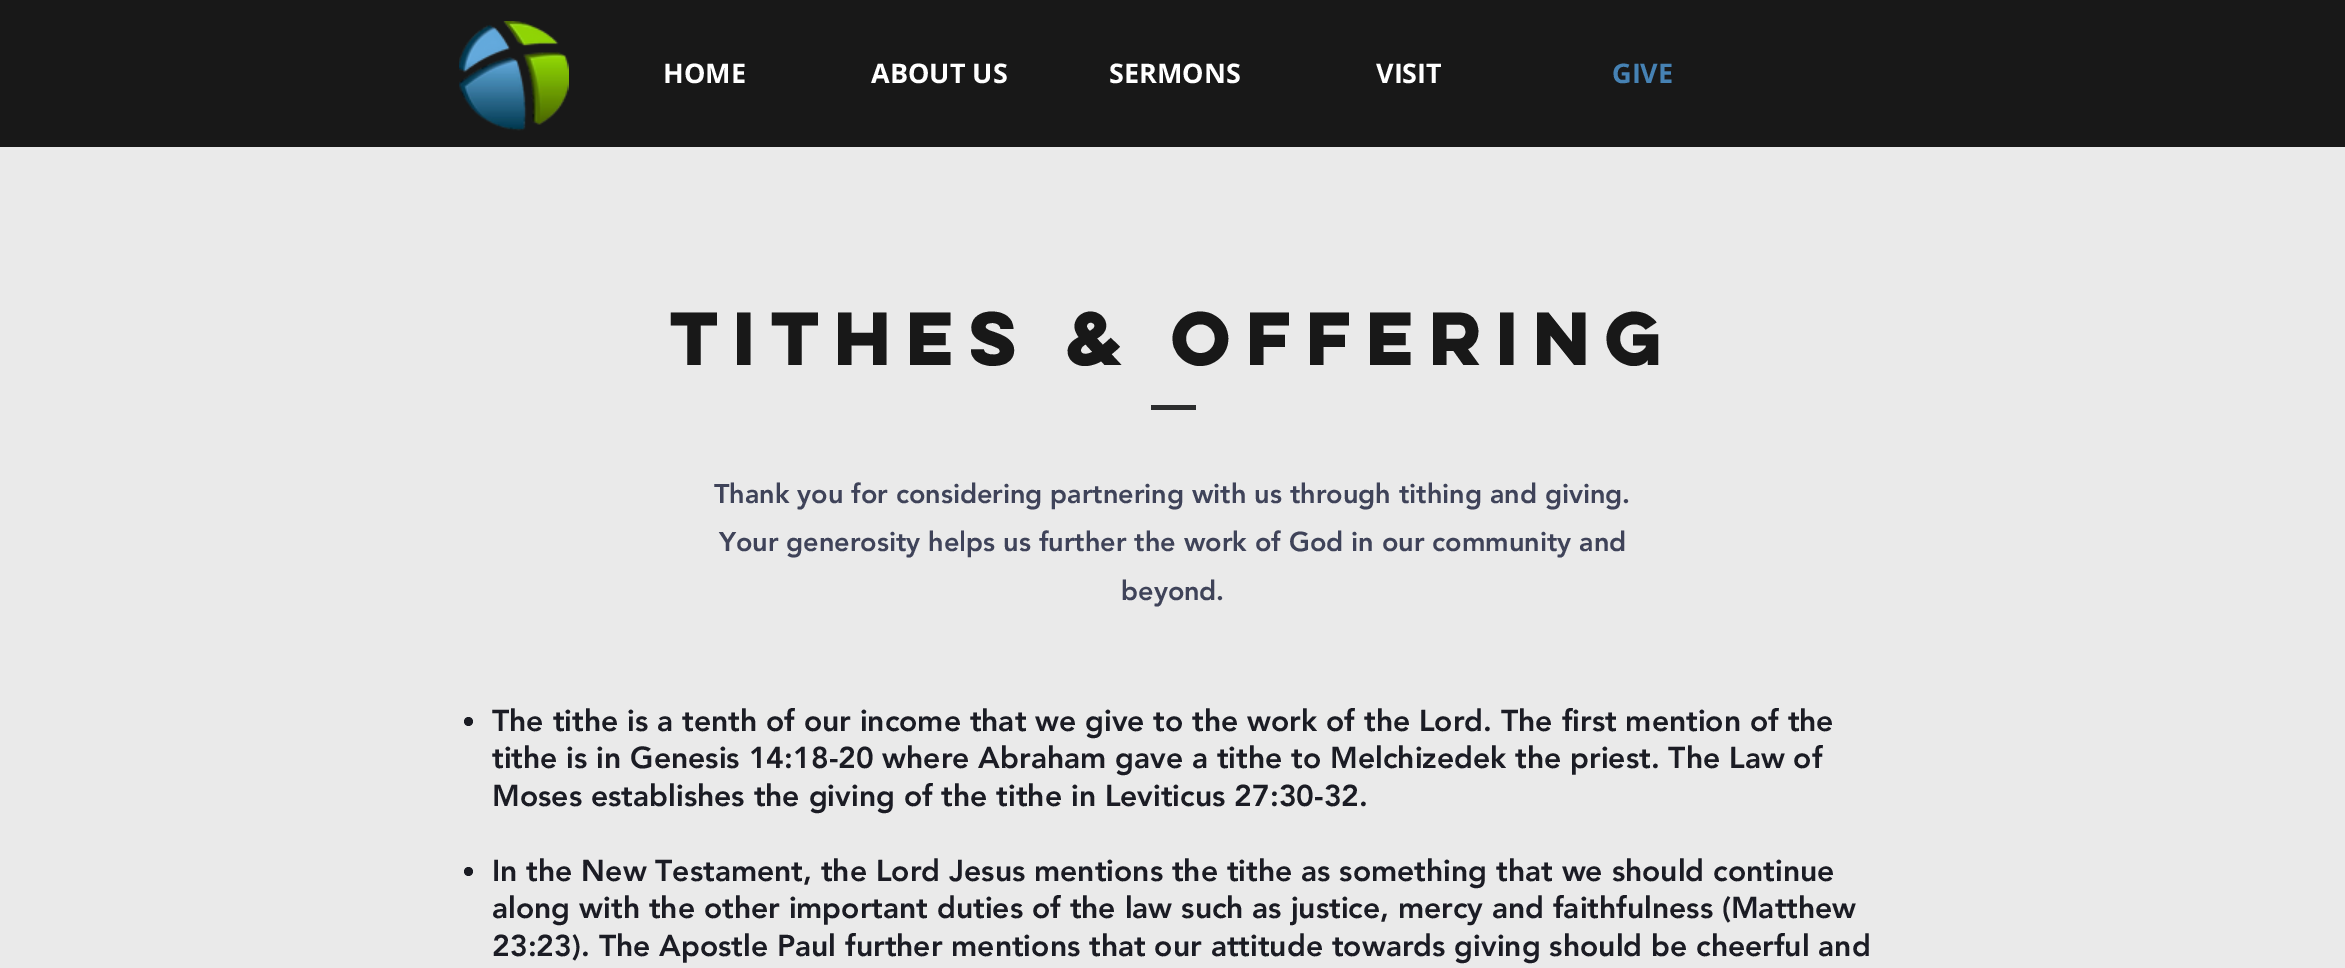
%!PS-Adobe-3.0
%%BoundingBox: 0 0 2345 968
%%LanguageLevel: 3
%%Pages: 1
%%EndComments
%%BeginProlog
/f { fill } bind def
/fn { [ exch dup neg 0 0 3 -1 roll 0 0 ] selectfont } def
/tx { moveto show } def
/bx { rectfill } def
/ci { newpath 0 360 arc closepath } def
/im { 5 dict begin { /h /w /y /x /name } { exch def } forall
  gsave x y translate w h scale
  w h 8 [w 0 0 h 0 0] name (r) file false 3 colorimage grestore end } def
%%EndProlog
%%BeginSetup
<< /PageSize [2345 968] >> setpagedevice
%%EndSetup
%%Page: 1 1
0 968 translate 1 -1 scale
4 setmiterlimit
0.094 setgray
0 0 2345 968 bx
(image0.raw) 459 21 110 110 im
/OpenSans-Bold 27 fn
1 setgray
(HOME) 663 83 tx
(ABOUT US) 871 83 tx
(SERMONS) 1109 83 tx
(VISIT) 1376 83 tx
0.275 0.51 0.706 setrgbcolor
(GIVE) 1612 83 tx
0.918 setgray
0 147 2345 821 bx
/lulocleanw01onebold-Bold 67.5 fn
0.094 setgray
(tithes & Offering) 670 365 tx
0.173 0.176 0.18 setrgbcolor
1151 405 45 5 bx
/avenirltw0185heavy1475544-Black 27 fn
0.247 0.263 0.349 setrgbcolor
(Thank you for considering partnering with us through tithing and giving.) 714 503 tx
(Your generosity helps us further the work of God in our community and) 719 551 tx
(beyond.) 1121 600 tx
0.106 0.11 0.141 setrgbcolor
468.5 721.5 4.5 ci f
/avenirltw0185heavy1475544-Black 30 fn
(The tithe is a tenth of our income that we give to the work of the Lord. The first mention of the) 492 731 tx
(tithe is in Genesis 14:18-20 where Abraham gave a tithe to Melchizedek the priest. The Law of) 492 768 tx
(Moses establishes the giving of the tithe in Leviticus 27:30-32.) 492 806 tx
468.5 871.5 4.5 ci f
(In the New Testament, the Lord Jesus mentions the tithe as something that we should continue) 492 881 tx
(along with the other important duties of the law such as justice, mercy and faithfulness \(Matthew) 492 918 tx
(23:23\). The Apostle Paul further mentions that our attitude towards giving should be cheerful and) 492 956 tx
showpage
%%EOF
